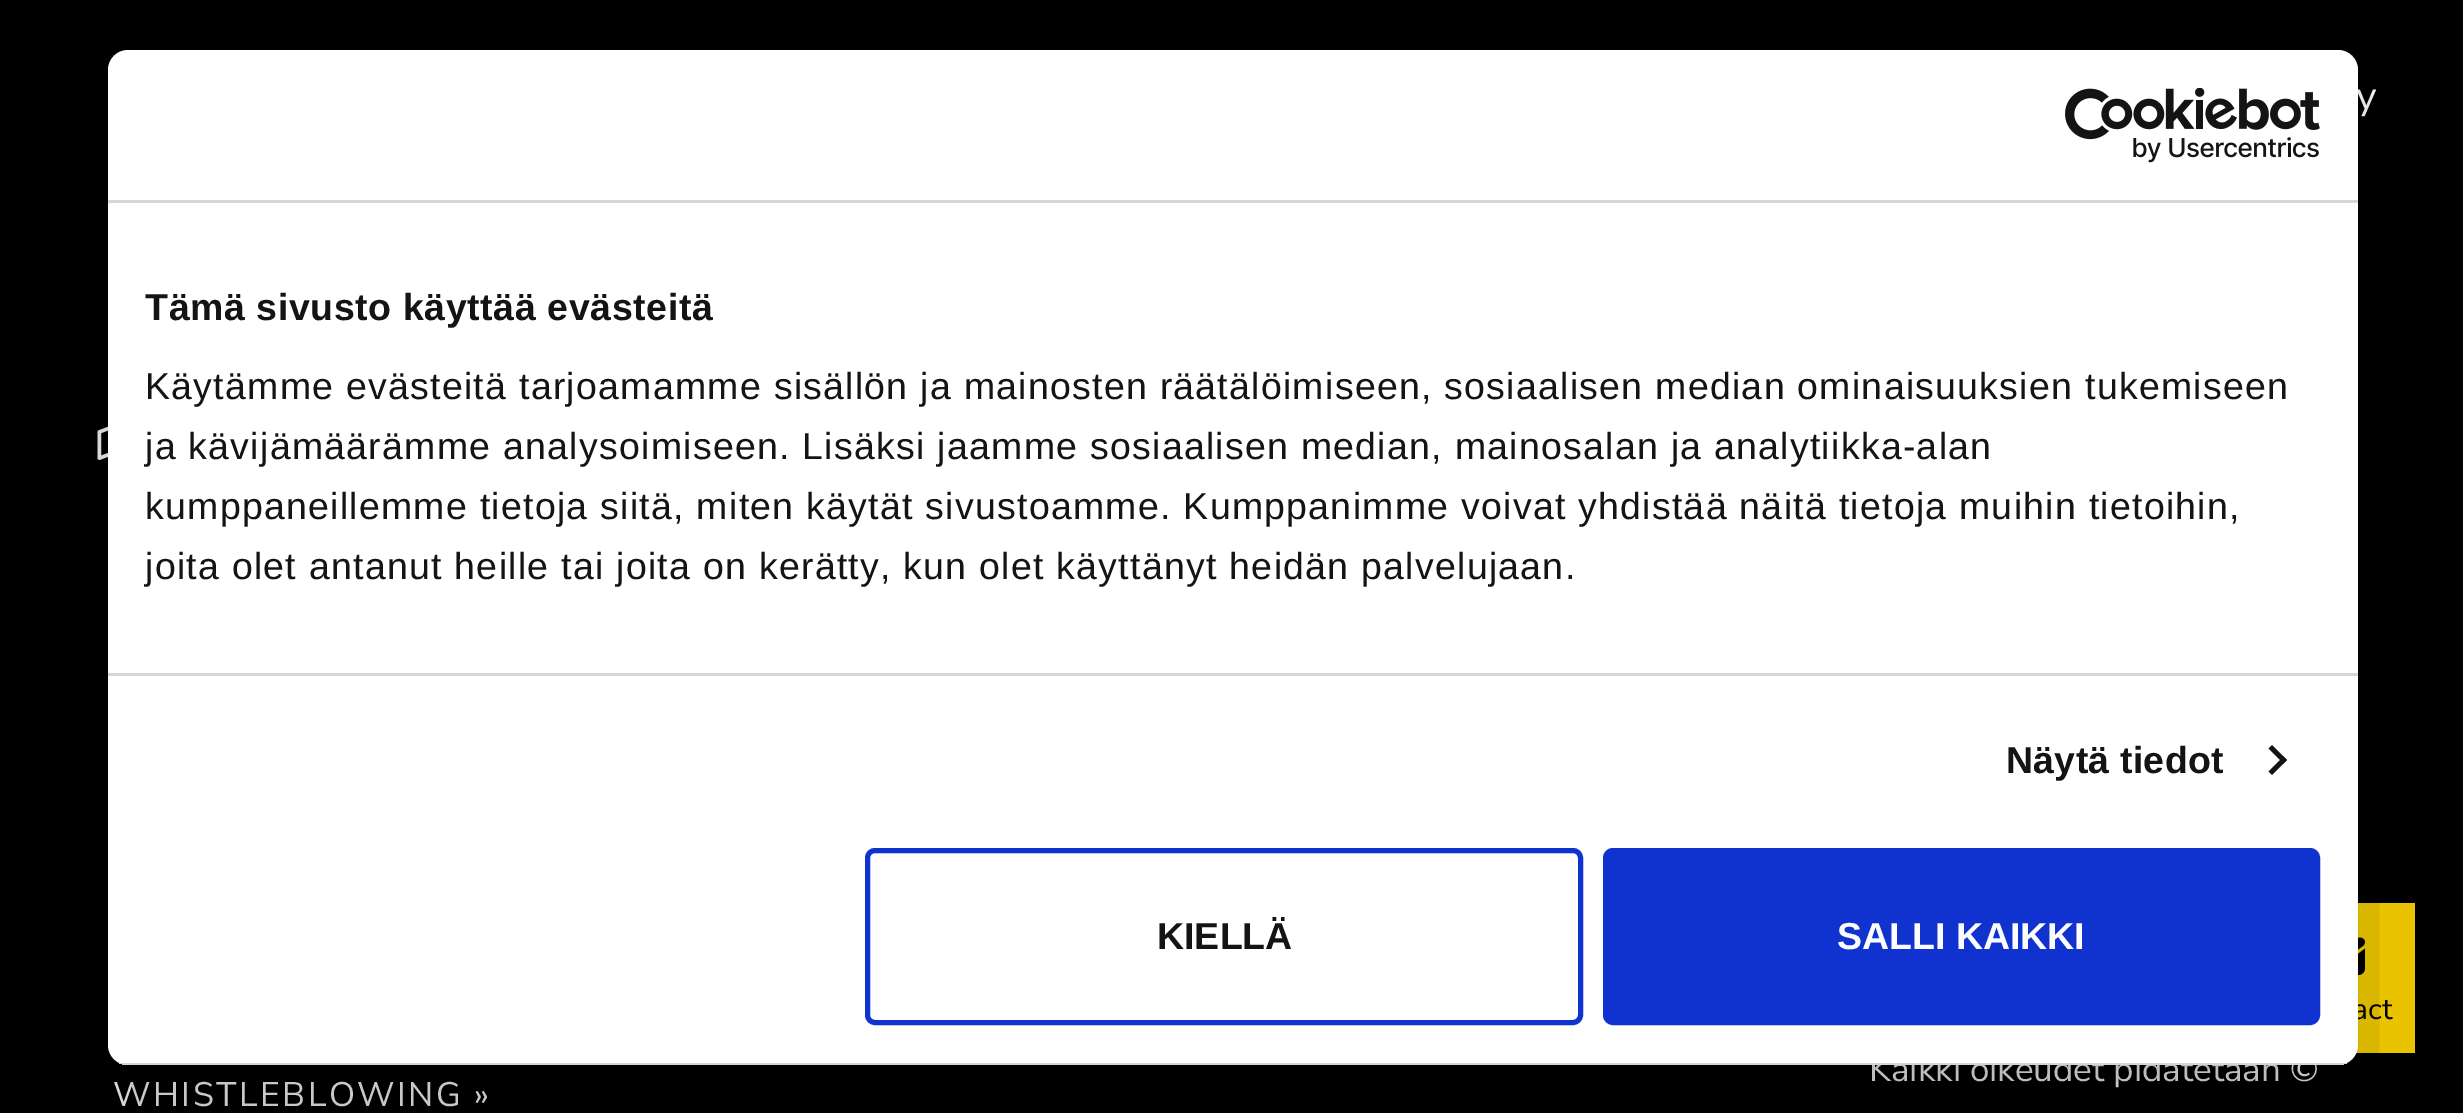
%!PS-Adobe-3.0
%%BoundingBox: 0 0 2463 1113
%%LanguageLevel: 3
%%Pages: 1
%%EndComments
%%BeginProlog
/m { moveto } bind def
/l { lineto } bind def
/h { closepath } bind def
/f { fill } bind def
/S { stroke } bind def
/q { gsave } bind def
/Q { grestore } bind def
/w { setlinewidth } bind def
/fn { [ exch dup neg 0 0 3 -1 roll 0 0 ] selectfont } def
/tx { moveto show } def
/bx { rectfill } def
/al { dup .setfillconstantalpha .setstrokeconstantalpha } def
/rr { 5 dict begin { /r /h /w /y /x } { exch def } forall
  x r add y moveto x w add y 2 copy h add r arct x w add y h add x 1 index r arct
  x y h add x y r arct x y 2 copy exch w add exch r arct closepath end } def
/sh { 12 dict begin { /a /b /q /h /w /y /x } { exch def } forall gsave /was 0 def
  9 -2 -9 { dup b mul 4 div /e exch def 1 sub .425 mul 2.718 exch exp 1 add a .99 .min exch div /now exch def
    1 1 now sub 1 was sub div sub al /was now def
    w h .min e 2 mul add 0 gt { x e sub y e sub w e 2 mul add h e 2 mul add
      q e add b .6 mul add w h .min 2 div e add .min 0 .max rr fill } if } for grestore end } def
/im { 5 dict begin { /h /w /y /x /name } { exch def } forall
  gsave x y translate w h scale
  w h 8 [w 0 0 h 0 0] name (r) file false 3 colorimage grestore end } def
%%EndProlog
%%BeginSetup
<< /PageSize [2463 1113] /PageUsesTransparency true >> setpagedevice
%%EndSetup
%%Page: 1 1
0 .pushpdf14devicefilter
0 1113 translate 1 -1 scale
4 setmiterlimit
0 setgray
0 0 2463 1113 bx
/NunitoSans-Regular 40 fn
0.988 setgray
(y) 2356 109 tx
(image0.raw) 97 426 11 34 im
/NunitoSans-Regular 35 fn
(Kaikki oikeudet pidätetään ©) 1869 1081 tx
/NunitoSans-Regular 34 fn
113 1106 m 2.5 0 (WHISTLEBLOWING ») ashow
1 0.843 0 setrgbcolor
2356 903 59 150 bx
(image2.raw) 2358 937 7 38 im
0 setgray
108 130 2250 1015 20 85 0.3 sh
/NunitoSans-Regular 30 fn
(act) 2352 1019 tx
1 setgray
108 50 2250 1015 20 rr f
0.839 setgray
108 200 2250 3 bx
(image1.raw) 2065 88 255 75 im
108 673 2250 3 bx
/LiberationSans-Bold 37.5 fn
0.078 setgray
145 320 m 0.6 0 (Tämä sivusto käyttää evästeitä) ashow
/LiberationSans-Regular 37.5 fn
145 399 m 1.25 0 (Käytämme evästeitä tarjoamamme sisällön ja mainosten räätälöimiseen, sosiaalisen median ominaisuuksien tukemiseen) ashow
145 459 m 1.25 0 (ja kävijämäärämme analysoimiseen. Lisäksi jaamme sosiaalisen median, mainosalan ja analytiikka-alan) ashow
145 519 m 1.25 0 (kumppaneillemme tietoja siitä, miten käytät sivustoamme. Kumppanimme voivat yhdistää näitä tietoja muihin tietoihin,) ashow
145 579 m 1.25 0 (joita olet antanut heille tai joita on kerätty, kun olet käyttänyt heidän palvelujaan.) ashow
/LiberationSans-Bold 37.5 fn
2006 773 m 0.25 0 (Näytä tiedot) ashow
2272 745 m 2287 760 l 2283.5 763.5 l 2268.5 748.5 l h f
2283.5 756.5 m 2287 760 l 2272 775 l 2268.5 771.5 l h f
q
108 50 2250 1015 20 rr clip newpath
0.839 setgray
119 1063 2228 2 bx
Q
0.063 0.196 0.812 setrgbcolor
5 w
867.5 850.5 713 172 7.5 rr S
0.078 setgray
(KIELLÄ) 1157 949 tx
0.063 0.196 0.812 setrgbcolor
1605.5 850.5 712 172 7.5 rr q f Q
S
0.988 setgray
(SALLI KAIKKI) 1837 949 tx
.poppdf14devicefilter showpage
%%EOF
